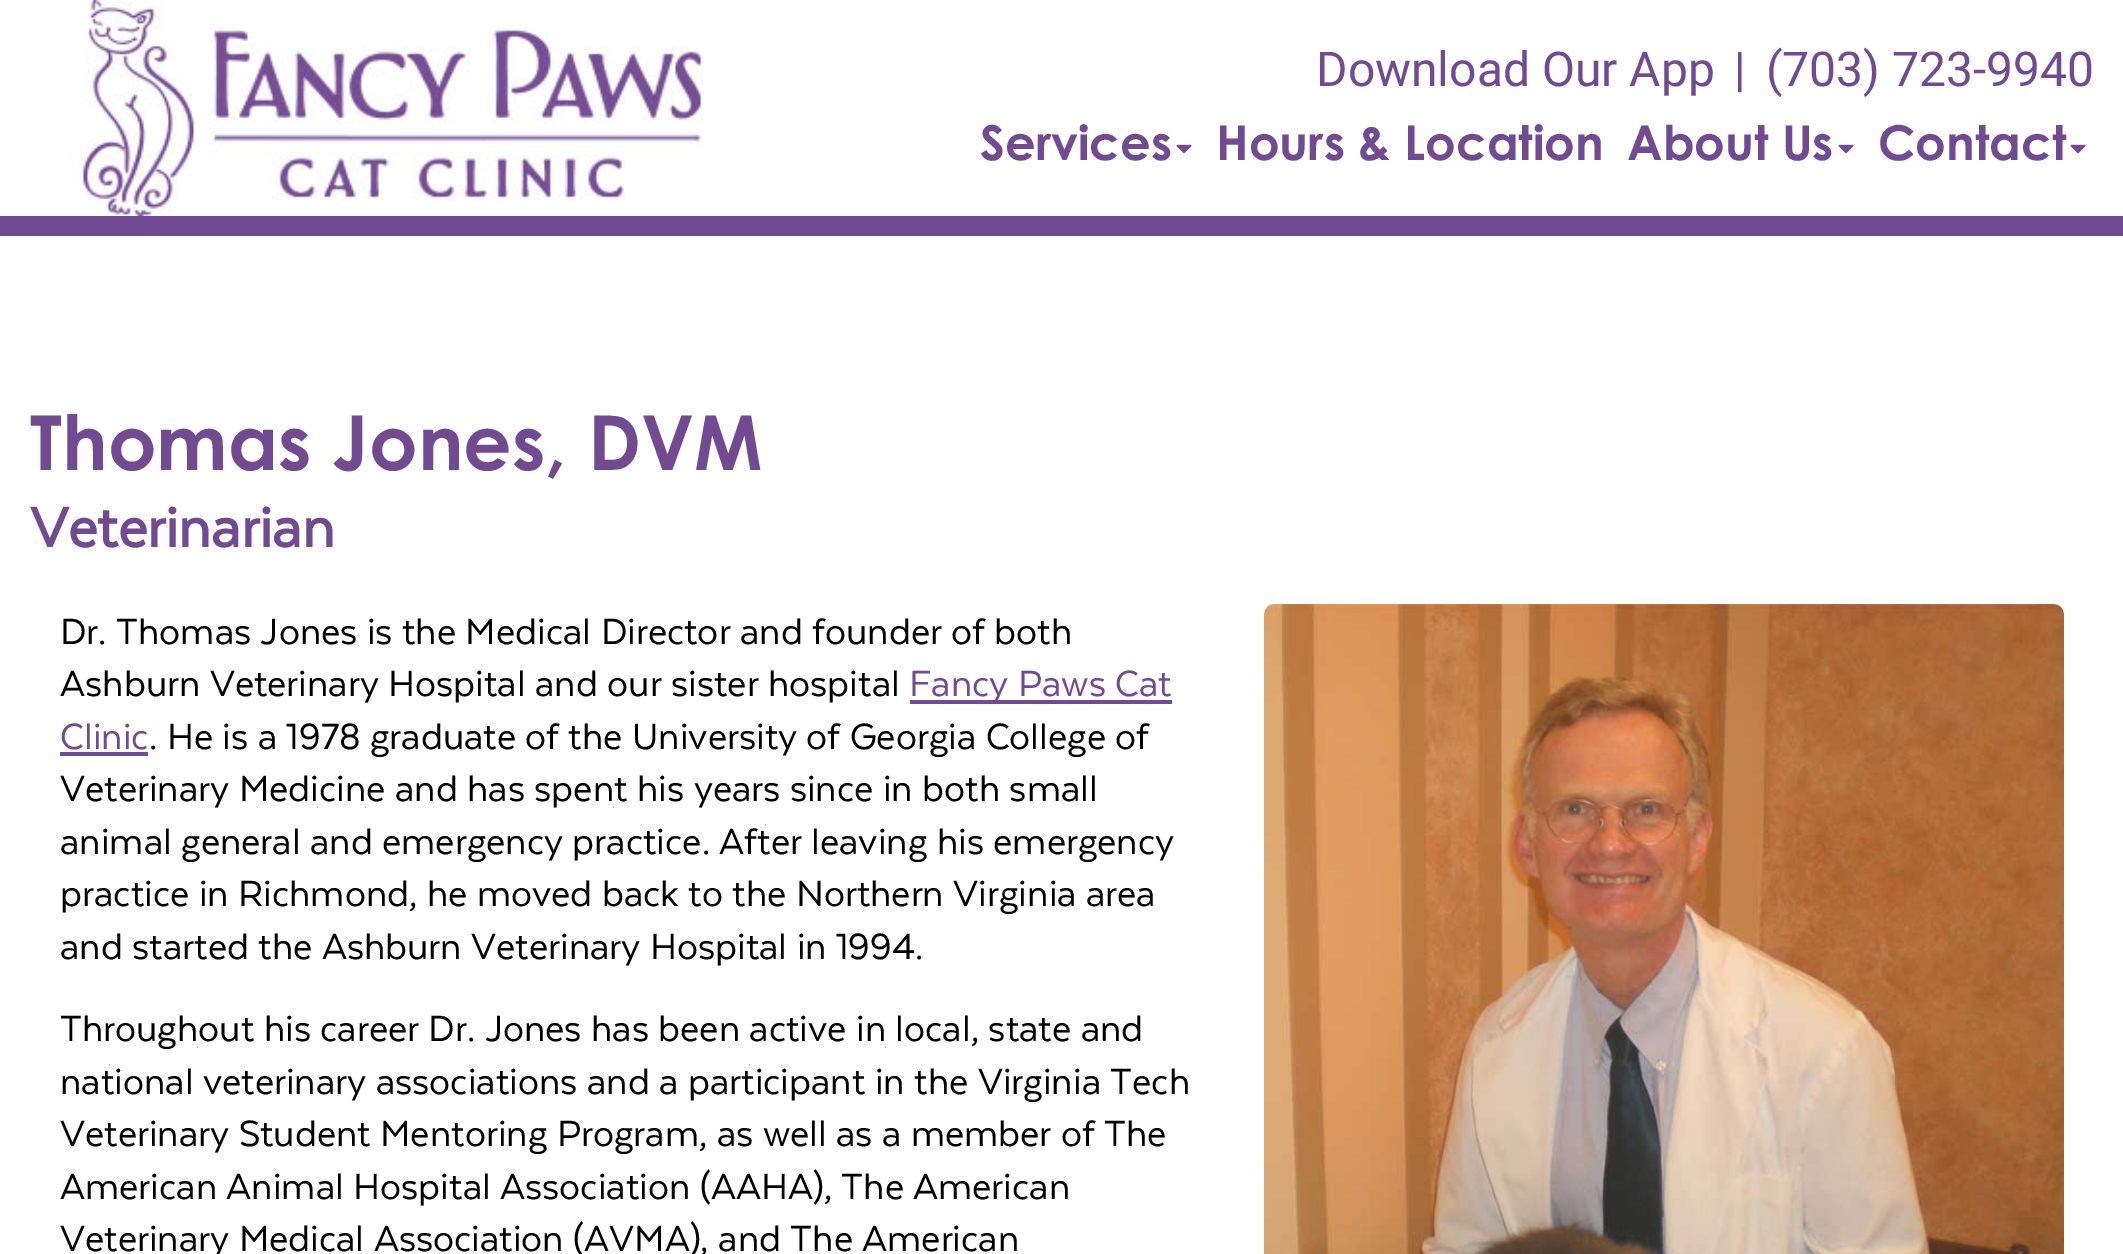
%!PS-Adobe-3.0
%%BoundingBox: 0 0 2123 1254
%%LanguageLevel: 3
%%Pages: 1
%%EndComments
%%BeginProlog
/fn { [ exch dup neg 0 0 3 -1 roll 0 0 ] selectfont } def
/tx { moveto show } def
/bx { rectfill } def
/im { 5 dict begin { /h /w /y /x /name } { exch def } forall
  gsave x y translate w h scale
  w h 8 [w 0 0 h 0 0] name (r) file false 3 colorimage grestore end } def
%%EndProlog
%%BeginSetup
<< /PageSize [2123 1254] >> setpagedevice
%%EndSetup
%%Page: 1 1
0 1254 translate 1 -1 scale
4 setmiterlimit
1 setgray
0 0 2123 1254 bx
0.443 0.29 0.569 setrgbcolor
0 216 2123 20 bx
(image0.raw) 70 0 633 216 im
/Roboto-Regular 48 fn
(Download Our App) 1316 86 tx
(|) 1734 86 tx
(\(703\) 723-9940) 1766 86 tx
/CenturyGothic-Bold 48 fn
(Services) 980 160 tx
(image1.raw) 1176 144 16 10 im
(Hours & Location) 1216 160 tx
(About Us) 1627 160 tx
(image1.raw) 1838 144 16 10 im
(Contact) 1878 160 tx
(image1.raw) 2070 144 16 10 im
/CenturyGothic-Bold 76 fn
(Thomas Jones, DVM) 30 470 tx
/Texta-Bold 64 fn
(Veterinarian) 30 547 tx
/Texta-Regular 42 fn
0 setgray
(Dr. Thomas Jones is the Medical Director and founder of both) 60 644 tx
(Ashburn Veterinary Hospital and our sister hospital) 60 696 tx
0.443 0.29 0.569 setrgbcolor
910 700 262 4 bx
(Fancy Paws Cat) 909 696 tx
(Clinic) 60 749 tx
60 752 88 4 bx
0 setgray
(. He is a 1978 graduate of the University of Georgia College of) 149 749 tx
(Veterinary Medicine and has spent his years since in both small) 60 801 tx
(animal general and emergency practice. After leaving his emergency) 60 854 tx
(practice in Richmond, he moved back to the Northern Virginia area) 60 906 tx
(and started the Ashburn Veterinary Hospital in 1994.) 60 959 tx
(Throughout his career Dr. Jones has been active in local, state and) 60 1041 tx
(national veterinary associations and a participant in the Virginia Tech) 60 1094 tx
(Veterinary Student Mentoring Program, as well as a member of The) 60 1146 tx
(American Animal Hospital Association \(AAHA\), The American) 60 1199 tx
(Veterinary Medical Association \(AVMA\), and The American) 60 1251 tx
(image2.raw) 1264 604 800 650 im
showpage
%%EOF
